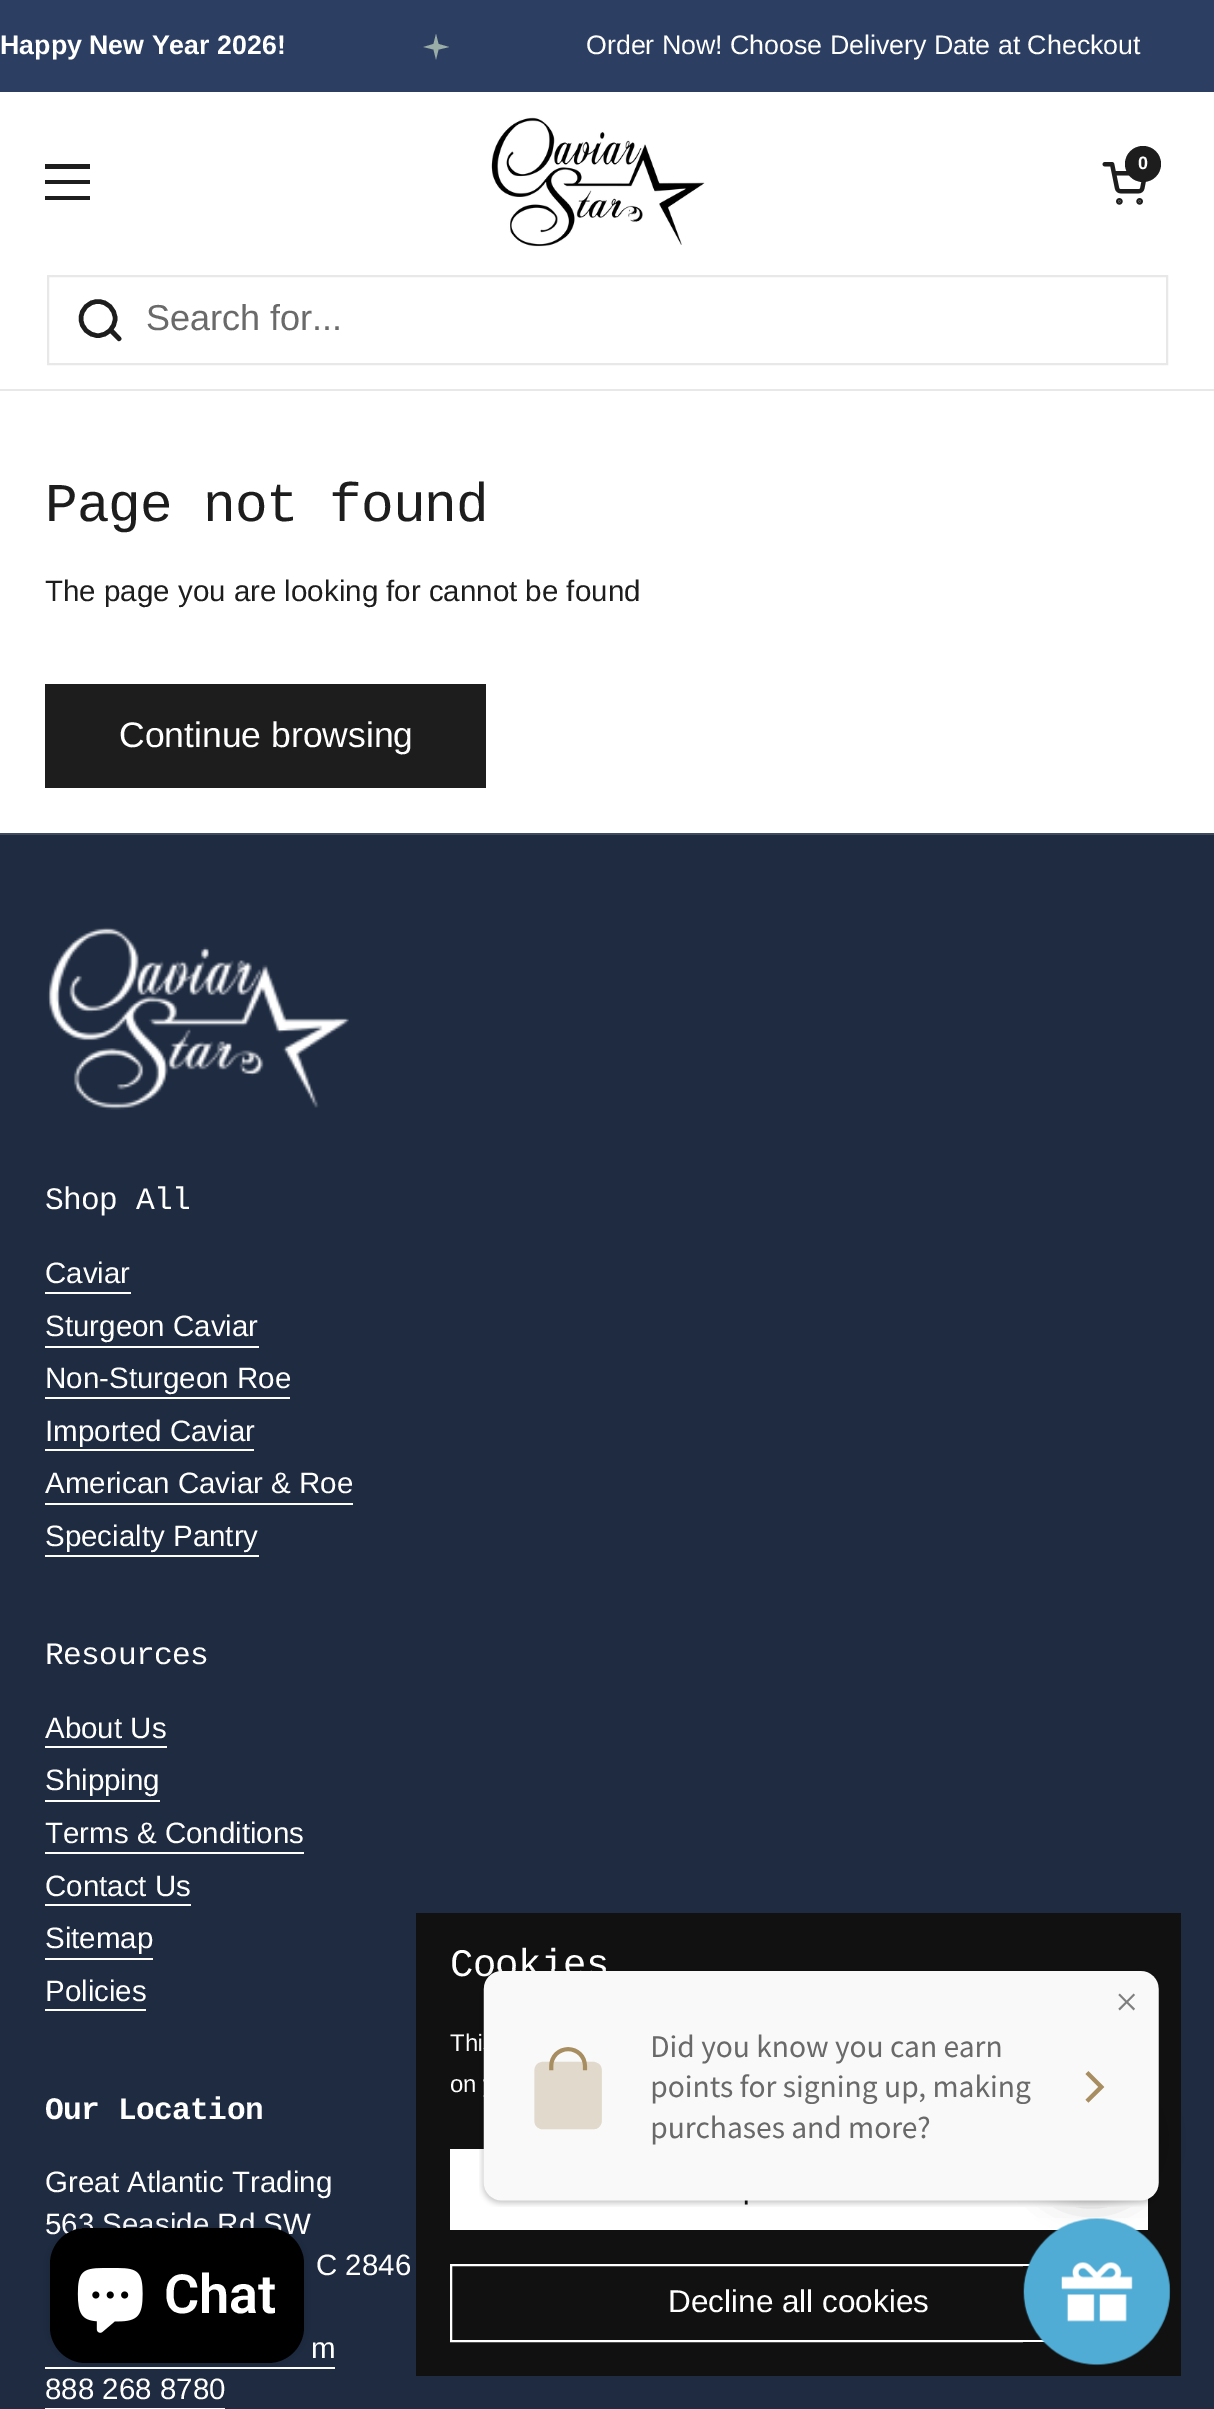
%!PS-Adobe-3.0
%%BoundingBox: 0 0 1214 2409
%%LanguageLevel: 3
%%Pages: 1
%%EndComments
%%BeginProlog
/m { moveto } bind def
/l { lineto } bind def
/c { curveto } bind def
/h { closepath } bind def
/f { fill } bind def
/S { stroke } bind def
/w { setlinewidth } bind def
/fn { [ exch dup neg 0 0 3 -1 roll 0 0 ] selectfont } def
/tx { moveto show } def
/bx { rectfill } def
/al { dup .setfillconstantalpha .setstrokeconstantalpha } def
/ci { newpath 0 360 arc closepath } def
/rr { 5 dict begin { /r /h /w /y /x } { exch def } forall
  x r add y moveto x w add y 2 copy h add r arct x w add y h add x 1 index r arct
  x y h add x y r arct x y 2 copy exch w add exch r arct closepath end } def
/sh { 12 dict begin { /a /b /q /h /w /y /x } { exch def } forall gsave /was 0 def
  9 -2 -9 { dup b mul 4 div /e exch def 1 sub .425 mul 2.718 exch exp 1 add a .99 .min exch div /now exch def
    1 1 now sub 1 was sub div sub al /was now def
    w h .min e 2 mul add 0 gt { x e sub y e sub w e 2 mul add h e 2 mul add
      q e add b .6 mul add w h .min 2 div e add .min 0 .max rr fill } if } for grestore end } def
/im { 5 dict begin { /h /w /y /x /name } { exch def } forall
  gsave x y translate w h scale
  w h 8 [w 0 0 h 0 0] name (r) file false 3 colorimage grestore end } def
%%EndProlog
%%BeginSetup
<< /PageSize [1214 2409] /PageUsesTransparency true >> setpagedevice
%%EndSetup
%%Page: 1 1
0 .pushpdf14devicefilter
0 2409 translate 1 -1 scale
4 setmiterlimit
1 setgray
0 0 1214 2409 bx
0.173 0.243 0.384 setrgbcolor
0 0 1214 92 bx
/LiberationSans-Bold 26.75 fn
1 setgray
(Happy New Year 2026!) 0 54 tx
0.608 0.678 0.655 setrgbcolor
436 34 m 438.5 44 l 449 47 l 438.5 49.5 l 436 59.5 l 433.5 49.5 l 423.5 47 l 433.5 44 l h f
/LiberationSans-Regular 26.75 fn
1 setgray
(Order Now! Choose Delivery Date at Checkout) 586 54 tx
0.114 setgray
45 164 45 5 bx
45 180 45 4 bx
45 196 45 4 bx
(image0.raw) 491 117 214 130 im
(image1.raw) 1102 162 44 43 im
1143 164 18 ci f
/LiberationSans-Bold 18 fn
1 setgray
(0) 1138 169 tx
0.91 setgray
0 389 1214 2 bx
2 w
48 276 1119 88 rectstroke
0.114 setgray
4.5 w
98 318.5 17 ci S
113 329 m 111 327.5 l 108 331 l 109.5 332.5 l h 117.5 340.5 m 119.5 342.5 123 339 120.5 337 c h 109.5 332.5 m 117.5 340.5 l 120.5 337 l 113 329 l h f
/LiberationSans-Regular 36 fn
0.416 setgray
(Search for...) 146 330 tx
/LiberationMono-Regular 54.5 fn
0.114 setgray
45 521 m -1.1 0 (Page not found) ashow
/LiberationSans-Regular 29.5 fn
(The page you are looking for cannot be found) 45 601 tx
45 684 441 104 bx
/LiberationSans-Regular 35.5 fn
1 setgray
(Continue browsing) 119 747 tx
0.118 0.169 0.255 setrgbcolor
0 835 1214 1574 bx
0.251 0.294 0.369 setrgbcolor
0 833 1214 2 bx
(image2.raw) 47 927 302 183 im
/LiberationMono-Regular 31.25 fn
1 setgray
45 1209 m -0.6 0 (Shop All) ashow
/LiberationSans-Regular 29.5 fn
(Caviar) 45 1283 tx
45 1292 86 2 bx
(Sturgeon Caviar) 45 1336 tx
45 1346 214 2 bx
(Non-Sturgeon Roe) 45 1388 tx
45 1397 245 2 bx
(Imported Caviar) 45 1441 tx
45 1449 209 2 bx
(American Caviar & Roe) 45 1493 tx
45 1503 308 2 bx
(Specialty Pantry) 45 1546 tx
45 1555 214 2 bx
/LiberationMono-Regular 31.25 fn
45 1664 m -0.6 0 (Resources) ashow
/LiberationSans-Regular 29.5 fn
(About Us) 45 1738 tx
45 1746 122 2 bx
(Shipping) 45 1790 tx
45 1800 115 2 bx
(Terms & Conditions) 45 1843 tx
45 1852 259 2 bx
(Contact Us) 45 1896 tx
45 1904 146 2 bx
(Sitemap) 45 1948 tx
45 1958 108 2 bx
(Policies) 45 2001 tx
45 2009 101 2 bx
/LiberationMono-Bold 31.25 fn
45 2119 m -0.6 0 (Our Location) ashow
/LiberationSans-Regular 29.5 fn
(Great Atlantic Trading) 45 2192 tx
(563 Seaside Rd SW) 45 2234 tx
(C 2846) 316 2275 tx
(m) 311 2358 tx
45 2367 290 2 bx
(888 268 8780) 45 2399 tx
45 2408 180 1 bx
0.067 setgray
416 1913 765 463 bx
/LiberationMono-Regular 39 fn
1 setgray
450 1976 m -0.75 0 (Cookies) ashow
/LiberationSans-Regular 24 fn
(Thi) 450 2051 tx
(on) 450 2092 tx
450 2149 698 81 bx
2 w
451 2265 696 76 rectstroke
/LiberationSans-Regular 31.5 fn
(Decline all cookies) 668 2312 tx
0 setgray
1035 2084 113 112 56 17 0.35 sh
(image3.raw) 479 1969 680 238 im
50 2228 254 135 36 5.5 0.15 sh
50 2228 254 135 36 rr f
(image4.raw) 77 2268 66 65 im
/Roboto-SemiBold 54 fn
1 setgray
(Chat) 164 2313 tx
(image5.raw) 1023 2218 148 148 im
.poppdf14devicefilter showpage
%%EOF
